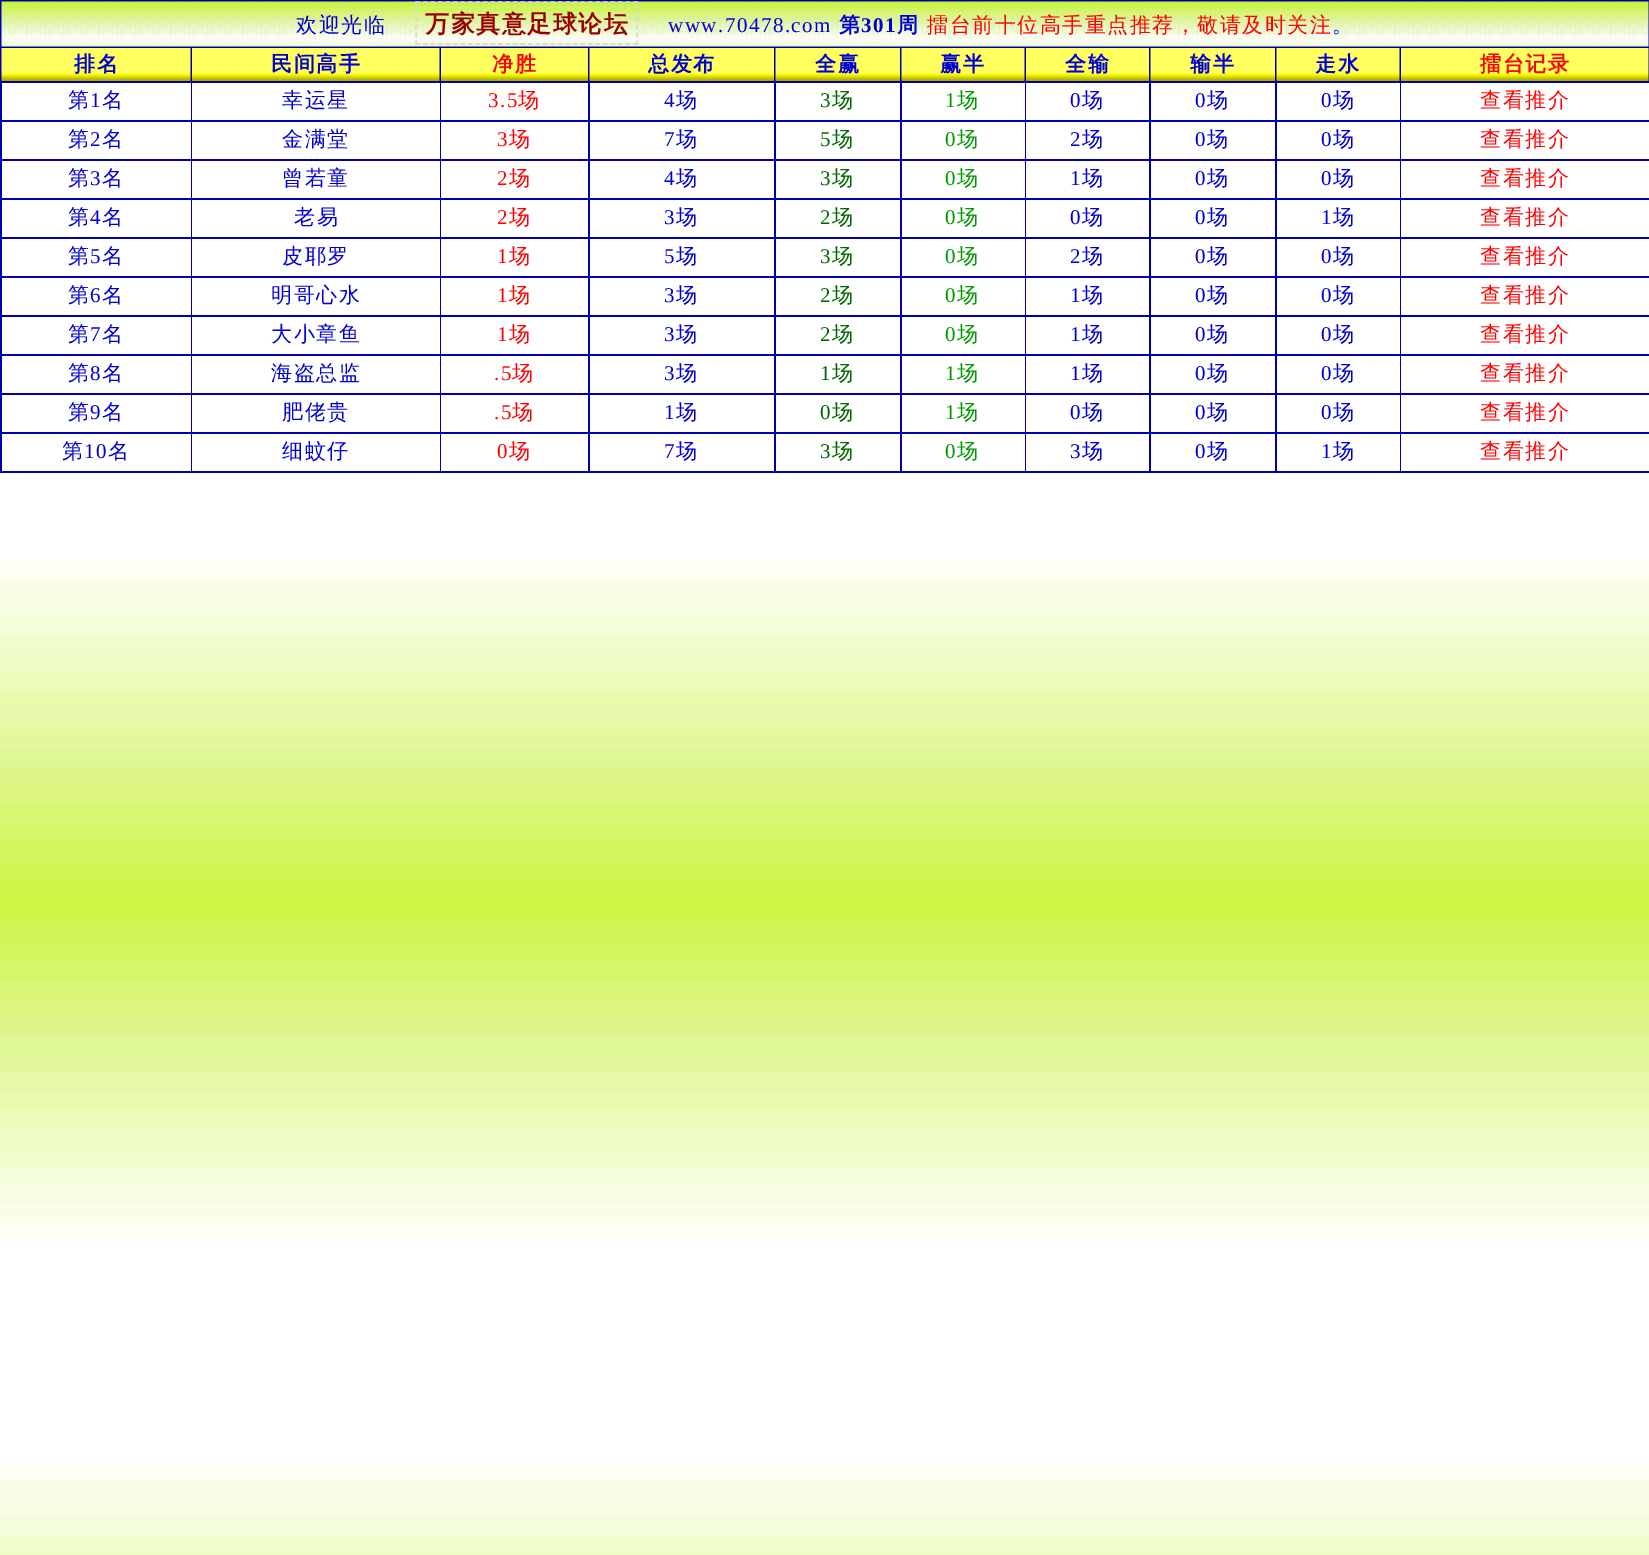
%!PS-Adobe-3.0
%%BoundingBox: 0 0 1649 1555
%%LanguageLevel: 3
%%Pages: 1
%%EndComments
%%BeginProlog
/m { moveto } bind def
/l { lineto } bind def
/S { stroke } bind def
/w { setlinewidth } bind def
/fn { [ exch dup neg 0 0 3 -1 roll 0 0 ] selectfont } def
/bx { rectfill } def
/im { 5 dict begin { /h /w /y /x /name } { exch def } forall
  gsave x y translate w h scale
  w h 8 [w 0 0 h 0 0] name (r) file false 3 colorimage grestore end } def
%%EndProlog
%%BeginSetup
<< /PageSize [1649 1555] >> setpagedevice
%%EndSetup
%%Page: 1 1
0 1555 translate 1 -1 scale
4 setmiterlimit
1 setgray
0 0 1649 1555 bx
(image0.raw) 0 473 1649 1082 im
0 0 0.647 setrgbcolor
0 0 1649 473 bx
(image1.raw) 1 1 1648 46 im
/WenQuanYiZenHei-Medium 21 fn
0 0 0.835 setrgbcolor
296 32 m 1.5 0 (欢迎光临) ashow
/WenQuanYiZenHei-Bold 24 fn
0.6 0 0 setrgbcolor
425 32 m 1.5 0 (万家真意足球论坛) ashow
0.847 setgray
1.5 w
[4.5 3] 0 setdash
415.5 2 m 637.5 2 l S
[4.5 3.3] 0 setdash
637 1.5 m 637 45 l S
[4.5 3] 0 setdash
415.5 44 m 637.5 44 l S
[4.5 3.3] 0 setdash
416 1.5 m 416 45 l S
/LiberationSerif-Regular 21 fn
0 0 0.835 setrgbcolor
668 32 m 1.5 0 (www.70478.com) ashow
/WenQuanYiZenHei-Bold 21 fn
839 32 m 1.5 0 (第) ashow
/LiberationSerif-Bold 21 fn
861 32 m 1.5 0 (301) ashow
/WenQuanYiZenHei-Bold 21 fn
897 32 m 1.5 0 (周) ashow
/WenQuanYiZenHei-Medium 21 fn
1 0 0 setrgbcolor
927 32 m 1.5 0 (擂台前十位高手重点推荐，敬请及时关注) ashow
0 0 0.835 setrgbcolor
1332 32 m 1.5 0 (。) ashow
(image2.raw) 1 48 190 33 im
/WenQuanYiZenHei-Bold 21 fn
74 71 m 1.5 0 (排名) ashow
(image3.raw) 192 48 248 33 im
271 71 m 1.5 0 (民间高手) ashow
(image4.raw) 441 48 147 33 im
1 0 0 setrgbcolor
492 71 m 1.5 0 (净胜) ashow
(image5.raw) 589 48 185 33 im
0 0 0.835 setrgbcolor
648 71 m 1.5 0 (总发布) ashow
(image6.raw) 775 48 125 33 im
815 71 m 1.5 0 (全赢) ashow
(image7.raw) 901 48 124 33 im
940 71 m 1.5 0 (赢半) ashow
(image8.raw) 1026 48 123 33 im
1065 71 m 1.5 0 (全输) ashow
(image9.raw) 1150 48 125 33 im
1190 71 m 1.5 0 (输半) ashow
(image10.raw) 1276 48 124 33 im
1315 71 m 1.5 0 (走水) ashow
(image11.raw) 1401 48 248 33 im
1 0 0 setrgbcolor
1480 71 m 1.5 0 (擂台记录) ashow
1 setgray
2 83 189 37 bx
/WenQuanYiZenHei-Medium 21 fn
0 0 0.835 setrgbcolor
68 107 m 1.5 0 (第) ashow
/LiberationSerif-Regular 21 fn
90 107 m 1.5 0 (1) ashow
/WenQuanYiZenHei-Medium 21 fn
102 107 m 1.5 0 (名) ashow
1 setgray
192 83 248 37 bx
0 0 0.835 setrgbcolor
282 107 m 1.5 0 (幸运星) ashow
1 setgray
441 83 147 37 bx
/LiberationSerif-Regular 21 fn
1 0 0 setrgbcolor
488 107 m 1.5 0 (3.5) ashow
/WenQuanYiZenHei-Medium 21 fn
518 107 m 1.5 0 (场) ashow
1 setgray
590 83 184 37 bx
/LiberationSerif-Regular 21 fn
0 0 0.835 setrgbcolor
664 107 m 1.5 0 (4) ashow
/WenQuanYiZenHei-Medium 21 fn
676 107 m 1.5 0 (场) ashow
1 setgray
776 83 124 37 bx
/LiberationSerif-Regular 21 fn
0 0.4 0 setrgbcolor
820 107 m 1.5 0 (3) ashow
/WenQuanYiZenHei-Medium 21 fn
832 107 m 1.5 0 (场) ashow
1 setgray
902 83 123 37 bx
/LiberationSerif-Regular 21 fn
0 0.6 0 setrgbcolor
945 107 m 1.5 0 (1) ashow
/WenQuanYiZenHei-Medium 21 fn
957 107 m 1.5 0 (场) ashow
1 setgray
1026 83 123 37 bx
/LiberationSerif-Regular 21 fn
0 0 0.835 setrgbcolor
1070 107 m 1.5 0 (0) ashow
/WenQuanYiZenHei-Medium 21 fn
1082 107 m 1.5 0 (场) ashow
1 setgray
1151 83 124 37 bx
/LiberationSerif-Regular 21 fn
0 0 0.835 setrgbcolor
1195 107 m 1.5 0 (0) ashow
/WenQuanYiZenHei-Medium 21 fn
1207 107 m 1.5 0 (场) ashow
1 setgray
1277 83 123 37 bx
/LiberationSerif-Regular 21 fn
0 0 0.835 setrgbcolor
1321 107 m 1.5 0 (0) ashow
/WenQuanYiZenHei-Medium 21 fn
1333 107 m 1.5 0 (场) ashow
1 setgray
1401 83 248 37 bx
1 0 0 setrgbcolor
1480 107 m 1.5 0 (查看推介) ashow
1 setgray
2 122 189 37 bx
0 0 0.835 setrgbcolor
68 146 m 1.5 0 (第) ashow
/LiberationSerif-Regular 21 fn
90 146 m 1.5 0 (2) ashow
/WenQuanYiZenHei-Medium 21 fn
102 146 m 1.5 0 (名) ashow
1 setgray
192 122 248 37 bx
0 0 0.835 setrgbcolor
282 146 m 1.5 0 (金满堂) ashow
1 setgray
441 122 147 37 bx
/LiberationSerif-Regular 21 fn
1 0 0 setrgbcolor
497 146 m 1.5 0 (3) ashow
/WenQuanYiZenHei-Medium 21 fn
509 146 m 1.5 0 (场) ashow
1 setgray
590 122 184 37 bx
/LiberationSerif-Regular 21 fn
0 0 0.835 setrgbcolor
664 146 m 1.5 0 (7) ashow
/WenQuanYiZenHei-Medium 21 fn
676 146 m 1.5 0 (场) ashow
1 setgray
776 122 124 37 bx
/LiberationSerif-Regular 21 fn
0 0.4 0 setrgbcolor
820 146 m 1.5 0 (5) ashow
/WenQuanYiZenHei-Medium 21 fn
832 146 m 1.5 0 (场) ashow
1 setgray
902 122 123 37 bx
/LiberationSerif-Regular 21 fn
0 0.6 0 setrgbcolor
945 146 m 1.5 0 (0) ashow
/WenQuanYiZenHei-Medium 21 fn
957 146 m 1.5 0 (场) ashow
1 setgray
1026 122 123 37 bx
/LiberationSerif-Regular 21 fn
0 0 0.835 setrgbcolor
1070 146 m 1.5 0 (2) ashow
/WenQuanYiZenHei-Medium 21 fn
1082 146 m 1.5 0 (场) ashow
1 setgray
1151 122 124 37 bx
/LiberationSerif-Regular 21 fn
0 0 0.835 setrgbcolor
1195 146 m 1.5 0 (0) ashow
/WenQuanYiZenHei-Medium 21 fn
1207 146 m 1.5 0 (场) ashow
1 setgray
1277 122 123 37 bx
/LiberationSerif-Regular 21 fn
0 0 0.835 setrgbcolor
1321 146 m 1.5 0 (0) ashow
/WenQuanYiZenHei-Medium 21 fn
1333 146 m 1.5 0 (场) ashow
1 setgray
1401 122 248 37 bx
1 0 0 setrgbcolor
1480 146 m 1.5 0 (查看推介) ashow
1 setgray
2 161 189 37 bx
0 0 0.835 setrgbcolor
68 185 m 1.5 0 (第) ashow
/LiberationSerif-Regular 21 fn
90 185 m 1.5 0 (3) ashow
/WenQuanYiZenHei-Medium 21 fn
102 185 m 1.5 0 (名) ashow
1 setgray
192 161 248 37 bx
0 0 0.835 setrgbcolor
282 185 m 1.5 0 (曾若童) ashow
1 setgray
441 161 147 37 bx
/LiberationSerif-Regular 21 fn
1 0 0 setrgbcolor
497 185 m 1.5 0 (2) ashow
/WenQuanYiZenHei-Medium 21 fn
509 185 m 1.5 0 (场) ashow
1 setgray
590 161 184 37 bx
/LiberationSerif-Regular 21 fn
0 0 0.835 setrgbcolor
664 185 m 1.5 0 (4) ashow
/WenQuanYiZenHei-Medium 21 fn
676 185 m 1.5 0 (场) ashow
1 setgray
776 161 124 37 bx
/LiberationSerif-Regular 21 fn
0 0.4 0 setrgbcolor
820 185 m 1.5 0 (3) ashow
/WenQuanYiZenHei-Medium 21 fn
832 185 m 1.5 0 (场) ashow
1 setgray
902 161 123 37 bx
/LiberationSerif-Regular 21 fn
0 0.6 0 setrgbcolor
945 185 m 1.5 0 (0) ashow
/WenQuanYiZenHei-Medium 21 fn
957 185 m 1.5 0 (场) ashow
1 setgray
1026 161 123 37 bx
/LiberationSerif-Regular 21 fn
0 0 0.835 setrgbcolor
1070 185 m 1.5 0 (1) ashow
/WenQuanYiZenHei-Medium 21 fn
1082 185 m 1.5 0 (场) ashow
1 setgray
1151 161 124 37 bx
/LiberationSerif-Regular 21 fn
0 0 0.835 setrgbcolor
1195 185 m 1.5 0 (0) ashow
/WenQuanYiZenHei-Medium 21 fn
1207 185 m 1.5 0 (场) ashow
1 setgray
1277 161 123 37 bx
/LiberationSerif-Regular 21 fn
0 0 0.835 setrgbcolor
1321 185 m 1.5 0 (0) ashow
/WenQuanYiZenHei-Medium 21 fn
1333 185 m 1.5 0 (场) ashow
1 setgray
1401 161 248 37 bx
1 0 0 setrgbcolor
1480 185 m 1.5 0 (查看推介) ashow
1 setgray
2 200 189 37 bx
0 0 0.835 setrgbcolor
68 224 m 1.5 0 (第) ashow
/LiberationSerif-Regular 21 fn
90 224 m 1.5 0 (4) ashow
/WenQuanYiZenHei-Medium 21 fn
102 224 m 1.5 0 (名) ashow
1 setgray
192 200 248 37 bx
0 0 0.835 setrgbcolor
294 224 m 1.5 0 (老易) ashow
1 setgray
441 200 147 37 bx
/LiberationSerif-Regular 21 fn
1 0 0 setrgbcolor
497 224 m 1.5 0 (2) ashow
/WenQuanYiZenHei-Medium 21 fn
509 224 m 1.5 0 (场) ashow
1 setgray
590 200 184 37 bx
/LiberationSerif-Regular 21 fn
0 0 0.835 setrgbcolor
664 224 m 1.5 0 (3) ashow
/WenQuanYiZenHei-Medium 21 fn
676 224 m 1.5 0 (场) ashow
1 setgray
776 200 124 37 bx
/LiberationSerif-Regular 21 fn
0 0.4 0 setrgbcolor
820 224 m 1.5 0 (2) ashow
/WenQuanYiZenHei-Medium 21 fn
832 224 m 1.5 0 (场) ashow
1 setgray
902 200 123 37 bx
/LiberationSerif-Regular 21 fn
0 0.6 0 setrgbcolor
945 224 m 1.5 0 (0) ashow
/WenQuanYiZenHei-Medium 21 fn
957 224 m 1.5 0 (场) ashow
1 setgray
1026 200 123 37 bx
/LiberationSerif-Regular 21 fn
0 0 0.835 setrgbcolor
1070 224 m 1.5 0 (0) ashow
/WenQuanYiZenHei-Medium 21 fn
1082 224 m 1.5 0 (场) ashow
1 setgray
1151 200 124 37 bx
/LiberationSerif-Regular 21 fn
0 0 0.835 setrgbcolor
1195 224 m 1.5 0 (0) ashow
/WenQuanYiZenHei-Medium 21 fn
1207 224 m 1.5 0 (场) ashow
1 setgray
1277 200 123 37 bx
/LiberationSerif-Regular 21 fn
0 0 0.835 setrgbcolor
1321 224 m 1.5 0 (1) ashow
/WenQuanYiZenHei-Medium 21 fn
1333 224 m 1.5 0 (场) ashow
1 setgray
1401 200 248 37 bx
1 0 0 setrgbcolor
1480 224 m 1.5 0 (查看推介) ashow
1 setgray
2 239 189 37 bx
0 0 0.835 setrgbcolor
68 263 m 1.5 0 (第) ashow
/LiberationSerif-Regular 21 fn
90 263 m 1.5 0 (5) ashow
/WenQuanYiZenHei-Medium 21 fn
102 263 m 1.5 0 (名) ashow
1 setgray
192 239 248 37 bx
0 0 0.835 setrgbcolor
282 263 m 1.5 0 (皮耶罗) ashow
1 setgray
441 239 147 37 bx
/LiberationSerif-Regular 21 fn
1 0 0 setrgbcolor
497 263 m 1.5 0 (1) ashow
/WenQuanYiZenHei-Medium 21 fn
509 263 m 1.5 0 (场) ashow
1 setgray
590 239 184 37 bx
/LiberationSerif-Regular 21 fn
0 0 0.835 setrgbcolor
664 263 m 1.5 0 (5) ashow
/WenQuanYiZenHei-Medium 21 fn
676 263 m 1.5 0 (场) ashow
1 setgray
776 239 124 37 bx
/LiberationSerif-Regular 21 fn
0 0.4 0 setrgbcolor
820 263 m 1.5 0 (3) ashow
/WenQuanYiZenHei-Medium 21 fn
832 263 m 1.5 0 (场) ashow
1 setgray
902 239 123 37 bx
/LiberationSerif-Regular 21 fn
0 0.6 0 setrgbcolor
945 263 m 1.5 0 (0) ashow
/WenQuanYiZenHei-Medium 21 fn
957 263 m 1.5 0 (场) ashow
1 setgray
1026 239 123 37 bx
/LiberationSerif-Regular 21 fn
0 0 0.835 setrgbcolor
1070 263 m 1.5 0 (2) ashow
/WenQuanYiZenHei-Medium 21 fn
1082 263 m 1.5 0 (场) ashow
1 setgray
1151 239 124 37 bx
/LiberationSerif-Regular 21 fn
0 0 0.835 setrgbcolor
1195 263 m 1.5 0 (0) ashow
/WenQuanYiZenHei-Medium 21 fn
1207 263 m 1.5 0 (场) ashow
1 setgray
1277 239 123 37 bx
/LiberationSerif-Regular 21 fn
0 0 0.835 setrgbcolor
1321 263 m 1.5 0 (0) ashow
/WenQuanYiZenHei-Medium 21 fn
1333 263 m 1.5 0 (场) ashow
1 setgray
1401 239 248 37 bx
1 0 0 setrgbcolor
1480 263 m 1.5 0 (查看推介) ashow
1 setgray
2 278 189 37 bx
0 0 0.835 setrgbcolor
68 302 m 1.5 0 (第) ashow
/LiberationSerif-Regular 21 fn
90 302 m 1.5 0 (6) ashow
/WenQuanYiZenHei-Medium 21 fn
102 302 m 1.5 0 (名) ashow
1 setgray
192 278 248 37 bx
0 0 0.835 setrgbcolor
271 302 m 1.5 0 (明哥心水) ashow
1 setgray
441 278 147 37 bx
/LiberationSerif-Regular 21 fn
1 0 0 setrgbcolor
497 302 m 1.5 0 (1) ashow
/WenQuanYiZenHei-Medium 21 fn
509 302 m 1.5 0 (场) ashow
1 setgray
590 278 184 37 bx
/LiberationSerif-Regular 21 fn
0 0 0.835 setrgbcolor
664 302 m 1.5 0 (3) ashow
/WenQuanYiZenHei-Medium 21 fn
676 302 m 1.5 0 (场) ashow
1 setgray
776 278 124 37 bx
/LiberationSerif-Regular 21 fn
0 0.4 0 setrgbcolor
820 302 m 1.5 0 (2) ashow
/WenQuanYiZenHei-Medium 21 fn
832 302 m 1.5 0 (场) ashow
1 setgray
902 278 123 37 bx
/LiberationSerif-Regular 21 fn
0 0.6 0 setrgbcolor
945 302 m 1.5 0 (0) ashow
/WenQuanYiZenHei-Medium 21 fn
957 302 m 1.5 0 (场) ashow
1 setgray
1026 278 123 37 bx
/LiberationSerif-Regular 21 fn
0 0 0.835 setrgbcolor
1070 302 m 1.5 0 (1) ashow
/WenQuanYiZenHei-Medium 21 fn
1082 302 m 1.5 0 (场) ashow
1 setgray
1151 278 124 37 bx
/LiberationSerif-Regular 21 fn
0 0 0.835 setrgbcolor
1195 302 m 1.5 0 (0) ashow
/WenQuanYiZenHei-Medium 21 fn
1207 302 m 1.5 0 (场) ashow
1 setgray
1277 278 123 37 bx
/LiberationSerif-Regular 21 fn
0 0 0.835 setrgbcolor
1321 302 m 1.5 0 (0) ashow
/WenQuanYiZenHei-Medium 21 fn
1333 302 m 1.5 0 (场) ashow
1 setgray
1401 278 248 37 bx
1 0 0 setrgbcolor
1480 302 m 1.5 0 (查看推介) ashow
1 setgray
2 317 189 37 bx
0 0 0.835 setrgbcolor
68 341 m 1.5 0 (第) ashow
/LiberationSerif-Regular 21 fn
90 341 m 1.5 0 (7) ashow
/WenQuanYiZenHei-Medium 21 fn
102 341 m 1.5 0 (名) ashow
1 setgray
192 317 248 37 bx
0 0 0.835 setrgbcolor
271 341 m 1.5 0 (大小章鱼) ashow
1 setgray
441 317 147 37 bx
/LiberationSerif-Regular 21 fn
1 0 0 setrgbcolor
497 341 m 1.5 0 (1) ashow
/WenQuanYiZenHei-Medium 21 fn
509 341 m 1.5 0 (场) ashow
1 setgray
590 317 184 37 bx
/LiberationSerif-Regular 21 fn
0 0 0.835 setrgbcolor
664 341 m 1.5 0 (3) ashow
/WenQuanYiZenHei-Medium 21 fn
676 341 m 1.5 0 (场) ashow
1 setgray
776 317 124 37 bx
/LiberationSerif-Regular 21 fn
0 0.4 0 setrgbcolor
820 341 m 1.5 0 (2) ashow
/WenQuanYiZenHei-Medium 21 fn
832 341 m 1.5 0 (场) ashow
1 setgray
902 317 123 37 bx
/LiberationSerif-Regular 21 fn
0 0.6 0 setrgbcolor
945 341 m 1.5 0 (0) ashow
/WenQuanYiZenHei-Medium 21 fn
957 341 m 1.5 0 (场) ashow
1 setgray
1026 317 123 37 bx
/LiberationSerif-Regular 21 fn
0 0 0.835 setrgbcolor
1070 341 m 1.5 0 (1) ashow
/WenQuanYiZenHei-Medium 21 fn
1082 341 m 1.5 0 (场) ashow
1 setgray
1151 317 124 37 bx
/LiberationSerif-Regular 21 fn
0 0 0.835 setrgbcolor
1195 341 m 1.5 0 (0) ashow
/WenQuanYiZenHei-Medium 21 fn
1207 341 m 1.5 0 (场) ashow
1 setgray
1277 317 123 37 bx
/LiberationSerif-Regular 21 fn
0 0 0.835 setrgbcolor
1321 341 m 1.5 0 (0) ashow
/WenQuanYiZenHei-Medium 21 fn
1333 341 m 1.5 0 (场) ashow
1 setgray
1401 317 248 37 bx
1 0 0 setrgbcolor
1480 341 m 1.5 0 (查看推介) ashow
1 setgray
2 356 189 37 bx
0 0 0.835 setrgbcolor
68 380 m 1.5 0 (第) ashow
/LiberationSerif-Regular 21 fn
90 380 m 1.5 0 (8) ashow
/WenQuanYiZenHei-Medium 21 fn
102 380 m 1.5 0 (名) ashow
1 setgray
192 356 248 37 bx
0 0 0.835 setrgbcolor
271 380 m 1.5 0 (海盗总监) ashow
1 setgray
441 356 147 37 bx
/LiberationSerif-Regular 21 fn
1 0 0 setrgbcolor
494 380 m 1.5 0 (.5) ashow
/WenQuanYiZenHei-Medium 21 fn
512 380 m 1.5 0 (场) ashow
1 setgray
590 356 184 37 bx
/LiberationSerif-Regular 21 fn
0 0 0.835 setrgbcolor
664 380 m 1.5 0 (3) ashow
/WenQuanYiZenHei-Medium 21 fn
676 380 m 1.5 0 (场) ashow
1 setgray
776 356 124 37 bx
/LiberationSerif-Regular 21 fn
0 0.4 0 setrgbcolor
820 380 m 1.5 0 (1) ashow
/WenQuanYiZenHei-Medium 21 fn
832 380 m 1.5 0 (场) ashow
1 setgray
902 356 123 37 bx
/LiberationSerif-Regular 21 fn
0 0.6 0 setrgbcolor
945 380 m 1.5 0 (1) ashow
/WenQuanYiZenHei-Medium 21 fn
957 380 m 1.5 0 (场) ashow
1 setgray
1026 356 123 37 bx
/LiberationSerif-Regular 21 fn
0 0 0.835 setrgbcolor
1070 380 m 1.5 0 (1) ashow
/WenQuanYiZenHei-Medium 21 fn
1082 380 m 1.5 0 (场) ashow
1 setgray
1151 356 124 37 bx
/LiberationSerif-Regular 21 fn
0 0 0.835 setrgbcolor
1195 380 m 1.5 0 (0) ashow
/WenQuanYiZenHei-Medium 21 fn
1207 380 m 1.5 0 (场) ashow
1 setgray
1277 356 123 37 bx
/LiberationSerif-Regular 21 fn
0 0 0.835 setrgbcolor
1321 380 m 1.5 0 (0) ashow
/WenQuanYiZenHei-Medium 21 fn
1333 380 m 1.5 0 (场) ashow
1 setgray
1401 356 248 37 bx
1 0 0 setrgbcolor
1480 380 m 1.5 0 (查看推介) ashow
1 setgray
2 395 189 37 bx
0 0 0.835 setrgbcolor
68 419 m 1.5 0 (第) ashow
/LiberationSerif-Regular 21 fn
90 419 m 1.5 0 (9) ashow
/WenQuanYiZenHei-Medium 21 fn
102 419 m 1.5 0 (名) ashow
1 setgray
192 395 248 37 bx
0 0 0.835 setrgbcolor
282 419 m 1.5 0 (肥佬贵) ashow
1 setgray
441 395 147 37 bx
/LiberationSerif-Regular 21 fn
1 0 0 setrgbcolor
494 419 m 1.5 0 (.5) ashow
/WenQuanYiZenHei-Medium 21 fn
512 419 m 1.5 0 (场) ashow
1 setgray
590 395 184 37 bx
/LiberationSerif-Regular 21 fn
0 0 0.835 setrgbcolor
664 419 m 1.5 0 (1) ashow
/WenQuanYiZenHei-Medium 21 fn
676 419 m 1.5 0 (场) ashow
1 setgray
776 395 124 37 bx
/LiberationSerif-Regular 21 fn
0 0.4 0 setrgbcolor
820 419 m 1.5 0 (0) ashow
/WenQuanYiZenHei-Medium 21 fn
832 419 m 1.5 0 (场) ashow
1 setgray
902 395 123 37 bx
/LiberationSerif-Regular 21 fn
0 0.6 0 setrgbcolor
945 419 m 1.5 0 (1) ashow
/WenQuanYiZenHei-Medium 21 fn
957 419 m 1.5 0 (场) ashow
1 setgray
1026 395 123 37 bx
/LiberationSerif-Regular 21 fn
0 0 0.835 setrgbcolor
1070 419 m 1.5 0 (0) ashow
/WenQuanYiZenHei-Medium 21 fn
1082 419 m 1.5 0 (场) ashow
1 setgray
1151 395 124 37 bx
/LiberationSerif-Regular 21 fn
0 0 0.835 setrgbcolor
1195 419 m 1.5 0 (0) ashow
/WenQuanYiZenHei-Medium 21 fn
1207 419 m 1.5 0 (场) ashow
1 setgray
1277 395 123 37 bx
/LiberationSerif-Regular 21 fn
0 0 0.835 setrgbcolor
1321 419 m 1.5 0 (0) ashow
/WenQuanYiZenHei-Medium 21 fn
1333 419 m 1.5 0 (场) ashow
1 setgray
1401 395 248 37 bx
1 0 0 setrgbcolor
1480 419 m 1.5 0 (查看推介) ashow
1 setgray
2 434 189 37 bx
0 0 0.835 setrgbcolor
62 458 m 1.5 0 (第) ashow
/LiberationSerif-Regular 21 fn
84 458 m 1.5 0 (10) ashow
/WenQuanYiZenHei-Medium 21 fn
108 458 m 1.5 0 (名) ashow
1 setgray
192 434 248 37 bx
0 0 0.835 setrgbcolor
282 458 m 1.5 0 (细蚊仔) ashow
1 setgray
441 434 147 37 bx
/LiberationSerif-Regular 21 fn
1 0 0 setrgbcolor
497 458 m 1.5 0 (0) ashow
/WenQuanYiZenHei-Medium 21 fn
509 458 m 1.5 0 (场) ashow
1 setgray
590 434 184 37 bx
/LiberationSerif-Regular 21 fn
0 0 0.835 setrgbcolor
664 458 m 1.5 0 (7) ashow
/WenQuanYiZenHei-Medium 21 fn
676 458 m 1.5 0 (场) ashow
1 setgray
776 434 124 37 bx
/LiberationSerif-Regular 21 fn
0 0.4 0 setrgbcolor
820 458 m 1.5 0 (3) ashow
/WenQuanYiZenHei-Medium 21 fn
832 458 m 1.5 0 (场) ashow
1 setgray
902 434 123 37 bx
/LiberationSerif-Regular 21 fn
0 0.6 0 setrgbcolor
945 458 m 1.5 0 (0) ashow
/WenQuanYiZenHei-Medium 21 fn
957 458 m 1.5 0 (场) ashow
1 setgray
1026 434 123 37 bx
/LiberationSerif-Regular 21 fn
0 0 0.835 setrgbcolor
1070 458 m 1.5 0 (3) ashow
/WenQuanYiZenHei-Medium 21 fn
1082 458 m 1.5 0 (场) ashow
1 setgray
1151 434 124 37 bx
/LiberationSerif-Regular 21 fn
0 0 0.835 setrgbcolor
1195 458 m 1.5 0 (0) ashow
/WenQuanYiZenHei-Medium 21 fn
1207 458 m 1.5 0 (场) ashow
1 setgray
1277 434 123 37 bx
/LiberationSerif-Regular 21 fn
0 0 0.835 setrgbcolor
1321 458 m 1.5 0 (1) ashow
/WenQuanYiZenHei-Medium 21 fn
1333 458 m 1.5 0 (场) ashow
1 setgray
1401 434 248 37 bx
1 0 0 setrgbcolor
1480 458 m 1.5 0 (查看推介) ashow
showpage
%%EOF
